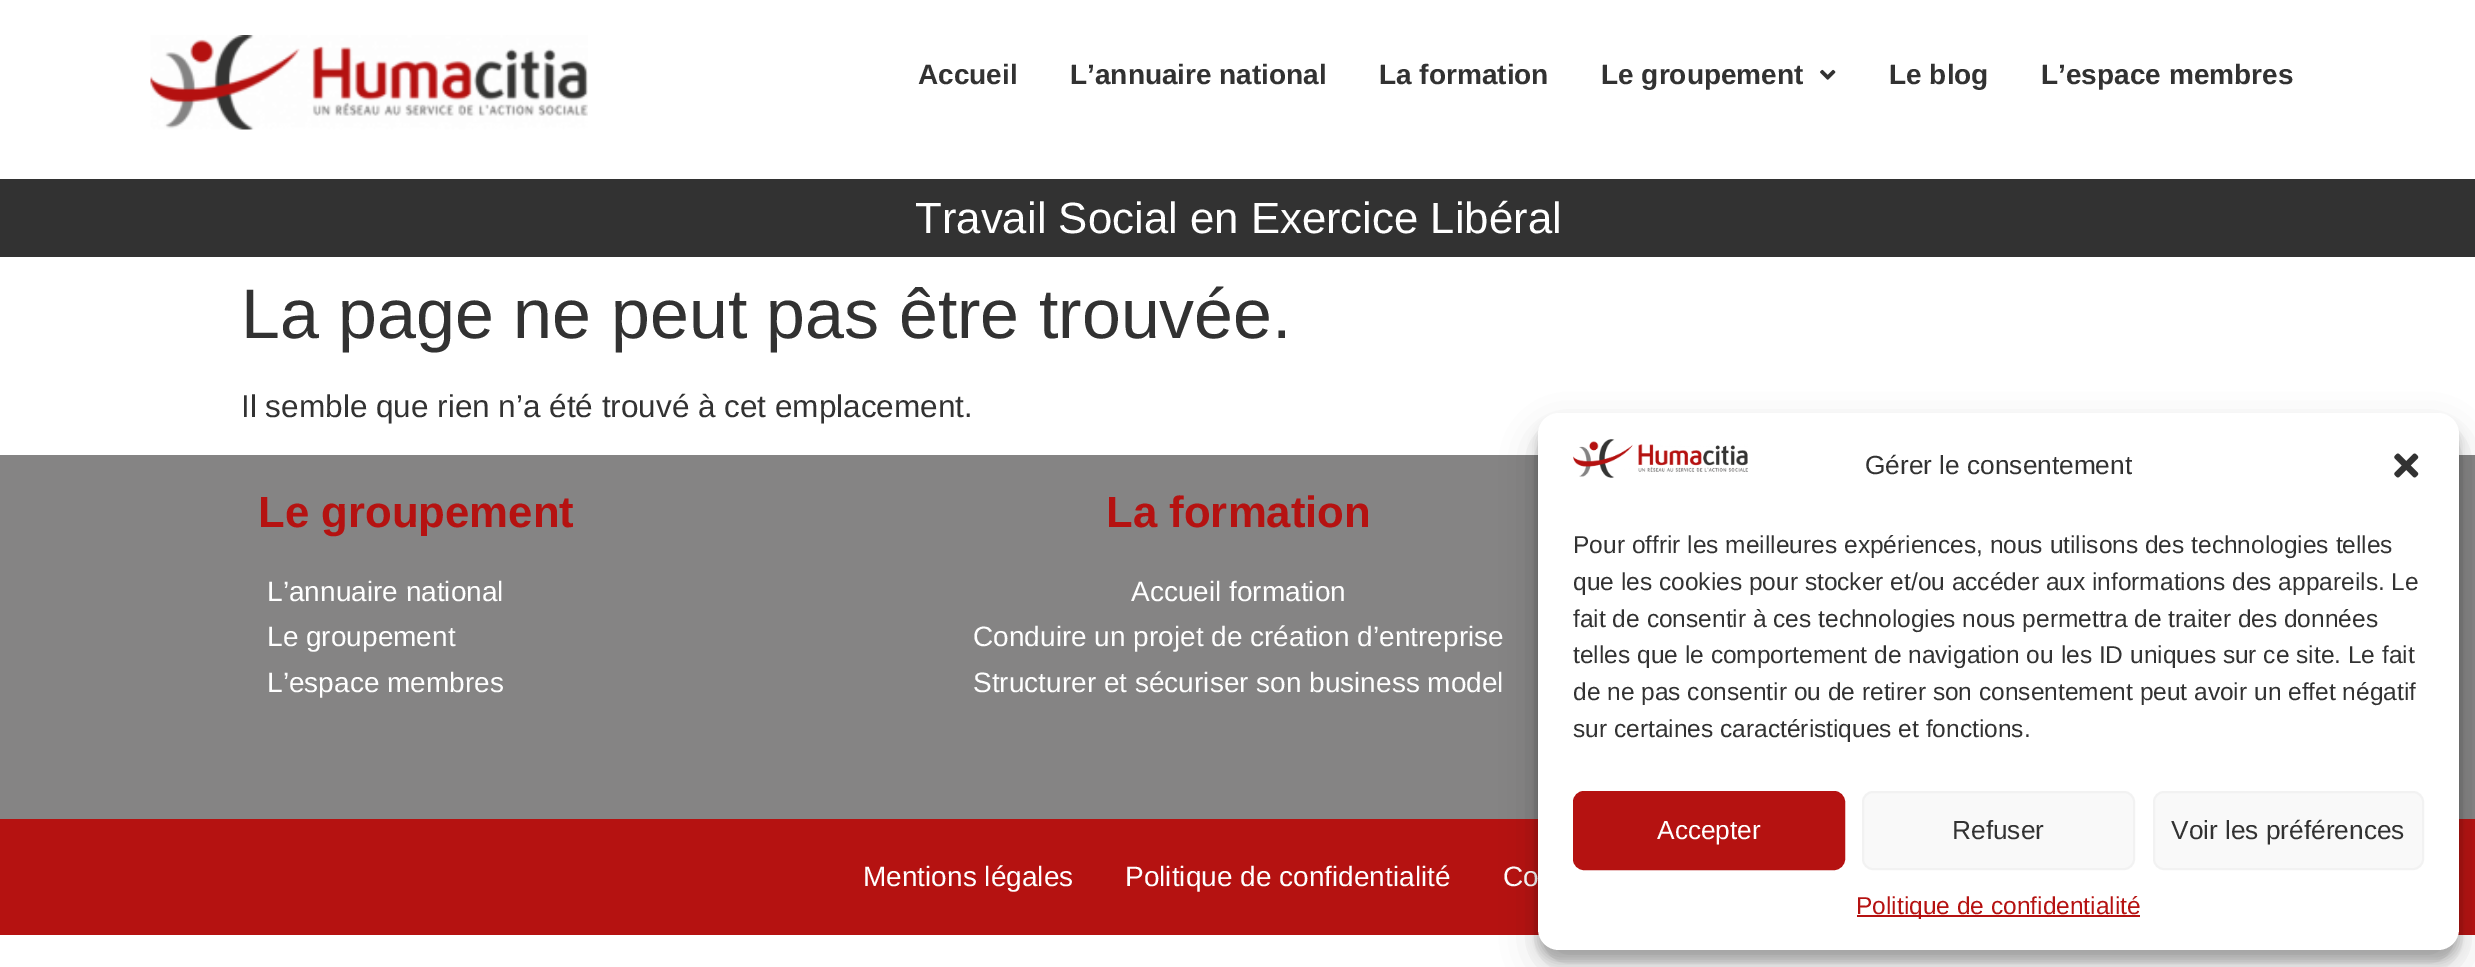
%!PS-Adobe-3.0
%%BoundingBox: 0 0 2475 967
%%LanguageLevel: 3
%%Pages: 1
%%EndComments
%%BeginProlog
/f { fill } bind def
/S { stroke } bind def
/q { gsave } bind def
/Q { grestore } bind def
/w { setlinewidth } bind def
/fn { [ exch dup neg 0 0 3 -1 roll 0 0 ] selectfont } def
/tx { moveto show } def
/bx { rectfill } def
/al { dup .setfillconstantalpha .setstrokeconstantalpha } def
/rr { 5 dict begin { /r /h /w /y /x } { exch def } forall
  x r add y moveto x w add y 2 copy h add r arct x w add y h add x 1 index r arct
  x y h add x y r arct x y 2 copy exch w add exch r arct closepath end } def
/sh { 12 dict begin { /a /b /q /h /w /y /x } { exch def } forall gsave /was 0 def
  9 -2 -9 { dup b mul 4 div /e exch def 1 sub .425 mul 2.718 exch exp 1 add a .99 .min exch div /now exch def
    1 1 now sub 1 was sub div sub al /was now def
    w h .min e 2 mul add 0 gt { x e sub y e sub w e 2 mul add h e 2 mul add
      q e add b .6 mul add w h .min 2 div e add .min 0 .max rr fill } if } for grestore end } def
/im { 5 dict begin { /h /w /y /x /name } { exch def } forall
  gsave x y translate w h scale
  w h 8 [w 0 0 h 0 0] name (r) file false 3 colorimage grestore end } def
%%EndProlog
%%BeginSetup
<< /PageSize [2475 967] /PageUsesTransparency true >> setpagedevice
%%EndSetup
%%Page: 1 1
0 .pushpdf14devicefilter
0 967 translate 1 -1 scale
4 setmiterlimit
1 setgray
0 0 2475 967 bx
(image0.raw) 150 35 438 95 im
/LiberationSans-Bold 28 fn
0.196 setgray
(Accueil) 918 84 tx
(L’annuaire national) 1070 84 tx
(La formation) 1379 84 tx
(Le groupement) 1601 84 tx
(image1.raw) 1820 69 16 11 im
(Le blog) 1889 84 tx
(L’espace membres) 2041 84 tx
0 179 2475 78 bx
/LiberationSans-Regular 43.75 fn
1 setgray
(Travail Social en Exercice Libéral) 915 233 tx
/LiberationSans-Regular 70 fn
0.196 setgray
(La page ne peut pas être trouvée.) 241 338 tx
/LiberationSans-Regular 31.5 fn
(Il semble que rien n’a été trouvé à cet emplacement.) 241 417 tx
0.522 0.518 0.518 setrgbcolor
0 455 2475 364 bx
/LiberationSans-Bold 43.75 fn
0.71 0.071 0.067 setrgbcolor
(Le groupement) 258 527 tx
/LiberationSans-Regular 28 fn
1 setgray
(L’annuaire national) 267 601 tx
(Le groupement) 267 646 tx
(L’espace membres) 267 692 tx
/LiberationSans-Bold 43.75 fn
0.71 0.071 0.067 setrgbcolor
(La formation) 1106 527 tx
/LiberationSans-Regular 28 fn
1 setgray
(Accueil formation) 1131 601 tx
(Conduire un projet de création d’entreprise) 973 646 tx
(Structurer et sécuriser son business model) 973 692 tx
0.71 0.071 0.067 setrgbcolor
0 819 2475 116 bx
1 setgray
(Mentions légales) 863 886 tx
(Politique de confidentialité) 1125 886 tx
(Co) 1503 886 tx
0 setgray
1538 424 921 537 21 5 0.23 sh
1538 431 921 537 21 17.5 0.19 sh
1 setgray
1538 413 921 537 21 rr f
(image2.raw) 1573 439 175 39 im
/LiberationSans-Regular 26.25 fn
0.196 setgray
(Gérer le consentement) 1865 474 tx
(image3.raw) 2394 453 25 25 im
/LiberationSans-Regular 24.5 fn
(Pour offrir les meilleures expériences, nous utilisons des technologies telles) 1573 553 tx
(que les cookies pour stocker et/ou accéder aux informations des appareils. Le) 1573 590 tx
(fait de consentir à ces technologies nous permettra de traiter des données) 1573 627 tx
(telles que le comportement de navigation ou les ID uniques sur ce site. Le fait) 1573 663 tx
(de ne pas consentir ou de retirer son consentement peut avoir un effet négatif) 1573 700 tx
(sur certaines caractéristiques et fonctions.) 1573 737 tx
0.71 0.071 0.067 setrgbcolor
1574 792 270 77 10 rr q f Q
2 w
S
/LiberationSans-Regular 26.25 fn
1 setgray
(Accepter) 1657 839 tx
0.976 setgray
1863 792 271 77 10 rr q f Q
0.949 setgray
S
0.196 setgray
(Refuser) 1952 839 tx
0.976 setgray
2154 792 269 77 10 rr q f Q
0.949 setgray
S
0.196 setgray
(Voir les préférences) 2171 839 tx
0.71 0.071 0.067 setrgbcolor
1857 915 283 2 bx
/LiberationSans-Regular 24.5 fn
(Politique de confidentialité) 1856 914 tx
.poppdf14devicefilter showpage
%%EOF
